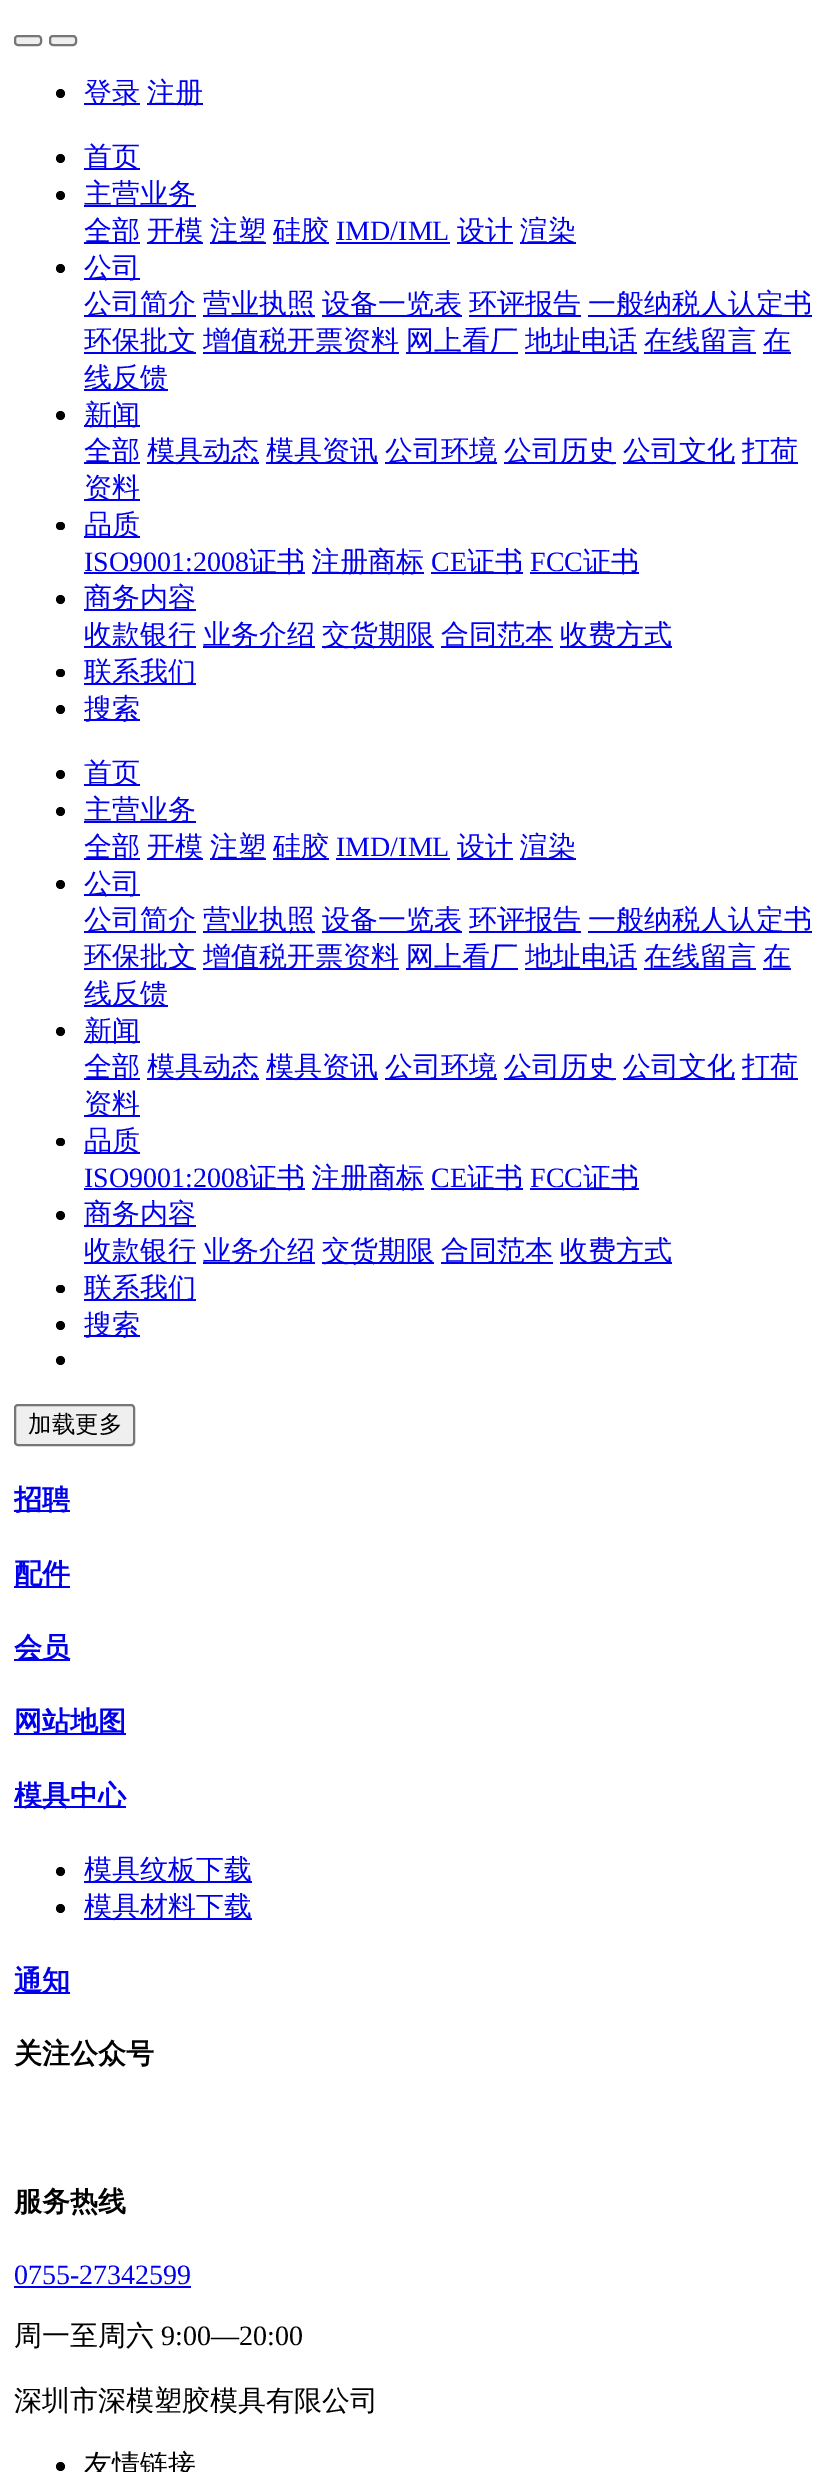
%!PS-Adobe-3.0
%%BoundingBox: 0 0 825 2472
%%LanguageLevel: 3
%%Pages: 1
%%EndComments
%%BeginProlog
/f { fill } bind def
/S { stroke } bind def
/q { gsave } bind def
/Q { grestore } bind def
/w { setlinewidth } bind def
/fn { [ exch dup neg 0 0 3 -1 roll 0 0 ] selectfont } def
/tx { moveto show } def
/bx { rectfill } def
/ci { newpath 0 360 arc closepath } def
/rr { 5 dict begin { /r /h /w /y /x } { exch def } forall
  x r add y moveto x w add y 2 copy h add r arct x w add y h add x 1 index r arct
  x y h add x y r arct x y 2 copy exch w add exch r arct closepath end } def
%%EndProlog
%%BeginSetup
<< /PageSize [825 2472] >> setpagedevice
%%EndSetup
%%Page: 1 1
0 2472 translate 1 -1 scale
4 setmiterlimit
1 setgray
0 0 825 2472 bx
0.937 setgray
15 36 26 9 3 rr q f Q
0.463 setgray
2 w
S
0.937 setgray
50 36 26 9 3 rr q f Q
0.463 setgray
S
0 setgray
60.5 93.5 4.5 ci f
0 0 0.933 setrgbcolor
84 103 56 2 bx
/WenQuanYiZenHei-Medium 28 fn
(登录) 84 102 tx
147 103 56 2 bx
(注册) 147 102 tx
0 setgray
60.5 158.5 4.5 ci f
0 0 0.933 setrgbcolor
84 168 56 2 bx
(首页) 84 166 tx
0 setgray
60.5 195.5 4.5 ci f
0 0 0.933 setrgbcolor
84 205 112 2 bx
(主营业务) 84 203 tx
84 242 56 2 bx
(全部) 84 240 tx
147 242 56 2 bx
(开模) 147 240 tx
210 242 56 2 bx
(注塑) 210 240 tx
273 242 56 2 bx
(硅胶) 273 240 tx
/LiberationSerif-Regular 28 fn
(IMD/IML) 336 240 tx
336 242 114 2 bx
457 242 56 2 bx
/WenQuanYiZenHei-Medium 28 fn
(设计) 457 240 tx
520 242 56 2 bx
(渲染) 520 240 tx
0 setgray
60.5 268.5 4.5 ci f
0 0 0.933 setrgbcolor
84 278 56 2 bx
(公司) 84 277 tx
84 315 112 2 bx
(公司简介) 84 313 tx
203 315 112 2 bx
(营业执照) 203 313 tx
322 315 140 2 bx
(设备一览表) 322 313 tx
469 315 112 2 bx
(环评报告) 469 313 tx
588 315 224 2 bx
(一般纳税人认定书) 588 313 tx
84 352 112 2 bx
(环保批文) 84 350 tx
203 352 196 2 bx
(增值税开票资料) 203 350 tx
406 352 112 2 bx
(网上看厂) 406 350 tx
525 352 112 2 bx
(地址电话) 525 350 tx
644 352 112 2 bx
(在线留言) 644 350 tx
763 352 28 2 bx
(在) 763 350 tx
84 389 84 2 bx
(线反馈) 84 387 tx
0 setgray
60.5 415.5 4.5 ci f
0 0 0.933 setrgbcolor
84 425 56 2 bx
(新闻) 84 424 tx
84 462 56 2 bx
(全部) 84 460 tx
147 462 112 2 bx
(模具动态) 147 460 tx
266 462 112 2 bx
(模具资讯) 266 460 tx
385 462 112 2 bx
(公司环境) 385 460 tx
504 462 112 2 bx
(公司历史) 504 460 tx
623 462 112 2 bx
(公司文化) 623 460 tx
742 462 56 2 bx
(打荷) 742 460 tx
84 499 56 2 bx
(资料) 84 497 tx
0 setgray
56 522 9 8 4 rr f
0 0 0.933 setrgbcolor
84 536 56 2 bx
(品质) 84 534 tx
/LiberationSerif-Regular 28 fn
(ISO9001:2008) 84 571 tx
84 572 221 2 bx
/WenQuanYiZenHei-Medium 28 fn
(证书) 249 571 tx
312 572 112 2 bx
(注册商标) 312 571 tx
/LiberationSerif-Regular 28 fn
(CE) 431 571 tx
431 572 92 2 bx
/WenQuanYiZenHei-Medium 28 fn
(证书) 467 571 tx
/LiberationSerif-Regular 28 fn
(FCC) 530 571 tx
530 572 109 2 bx
/WenQuanYiZenHei-Medium 28 fn
(证书) 583 571 tx
0 setgray
60.5 599.5 4.5 ci f
0 0 0.933 setrgbcolor
84 609 112 2 bx
(商务内容) 84 607 tx
84 646 112 2 bx
(收款银行) 84 644 tx
203 646 112 2 bx
(业务介绍) 203 644 tx
322 646 112 2 bx
(交货期限) 322 644 tx
441 646 112 2 bx
(合同范本) 441 644 tx
560 646 112 2 bx
(收费方式) 560 644 tx
0 setgray
56 669 9 8 4 rr f
0 0 0.933 setrgbcolor
84 683 112 2 bx
(联系我们) 84 681 tx
0 setgray
60.5 709.5 4.5 ci f
0 0 0.933 setrgbcolor
84 719 56 2 bx
(搜索) 84 718 tx
0 setgray
60.5 774.5 4.5 ci f
0 0 0.933 setrgbcolor
84 784 56 2 bx
(首页) 84 782 tx
0 setgray
60.5 811.5 4.5 ci f
0 0 0.933 setrgbcolor
84 821 112 2 bx
(主营业务) 84 819 tx
84 858 56 2 bx
(全部) 84 856 tx
147 858 56 2 bx
(开模) 147 856 tx
210 858 56 2 bx
(注塑) 210 856 tx
273 858 56 2 bx
(硅胶) 273 856 tx
/LiberationSerif-Regular 28 fn
(IMD/IML) 336 856 tx
336 858 114 2 bx
457 858 56 2 bx
/WenQuanYiZenHei-Medium 28 fn
(设计) 457 856 tx
520 858 56 2 bx
(渲染) 520 856 tx
0 setgray
60.5 884.5 4.5 ci f
0 0 0.933 setrgbcolor
84 894 56 2 bx
(公司) 84 893 tx
84 931 112 2 bx
(公司简介) 84 929 tx
203 931 112 2 bx
(营业执照) 203 929 tx
322 931 140 2 bx
(设备一览表) 322 929 tx
469 931 112 2 bx
(环评报告) 469 929 tx
588 931 224 2 bx
(一般纳税人认定书) 588 929 tx
84 968 112 2 bx
(环保批文) 84 966 tx
203 968 196 2 bx
(增值税开票资料) 203 966 tx
406 968 112 2 bx
(网上看厂) 406 966 tx
525 968 112 2 bx
(地址电话) 525 966 tx
644 968 112 2 bx
(在线留言) 644 966 tx
763 968 28 2 bx
(在) 763 966 tx
84 1005 84 2 bx
(线反馈) 84 1003 tx
0 setgray
60.5 1031.5 4.5 ci f
0 0 0.933 setrgbcolor
84 1041 56 2 bx
(新闻) 84 1040 tx
84 1078 56 2 bx
(全部) 84 1076 tx
147 1078 112 2 bx
(模具动态) 147 1076 tx
266 1078 112 2 bx
(模具资讯) 266 1076 tx
385 1078 112 2 bx
(公司环境) 385 1076 tx
504 1078 112 2 bx
(公司历史) 504 1076 tx
623 1078 112 2 bx
(公司文化) 623 1076 tx
742 1078 56 2 bx
(打荷) 742 1076 tx
84 1115 56 2 bx
(资料) 84 1113 tx
0 setgray
56 1138 9 8 4 rr f
0 0 0.933 setrgbcolor
84 1152 56 2 bx
(品质) 84 1150 tx
/LiberationSerif-Regular 28 fn
(ISO9001:2008) 84 1187 tx
84 1188 221 2 bx
/WenQuanYiZenHei-Medium 28 fn
(证书) 249 1187 tx
312 1188 112 2 bx
(注册商标) 312 1187 tx
/LiberationSerif-Regular 28 fn
(CE) 431 1187 tx
431 1188 92 2 bx
/WenQuanYiZenHei-Medium 28 fn
(证书) 467 1187 tx
/LiberationSerif-Regular 28 fn
(FCC) 530 1187 tx
530 1188 109 2 bx
/WenQuanYiZenHei-Medium 28 fn
(证书) 583 1187 tx
0 setgray
60.5 1215.5 4.5 ci f
0 0 0.933 setrgbcolor
84 1225 112 2 bx
(商务内容) 84 1223 tx
84 1262 112 2 bx
(收款银行) 84 1260 tx
203 1262 112 2 bx
(业务介绍) 203 1260 tx
322 1262 112 2 bx
(交货期限) 322 1260 tx
441 1262 112 2 bx
(合同范本) 441 1260 tx
560 1262 112 2 bx
(收费方式) 560 1260 tx
0 setgray
56 1285 9 8 4 rr f
0 0 0.933 setrgbcolor
84 1299 112 2 bx
(联系我们) 84 1297 tx
0 setgray
60.5 1325.5 4.5 ci f
0 0 0.933 setrgbcolor
84 1335 56 2 bx
(搜索) 84 1334 tx
0 setgray
60.5 1360.5 4.5 ci f
0.937 setgray
15 1405 119 40 3 rr q f Q
0.463 setgray
S
/WenQuanYiZenHei-Medium 23.5 fn
0 setgray
(加载更多) 28 1432 tx
0 0 0.933 setrgbcolor
14 1510 56 2 bx
/WenQuanYiZenHei-Bold 28 fn
(招聘) 14 1509 tx
14 1586 56 2 bx
(配件) 14 1583 tx
14 1659 56 2 bx
(会员) 14 1657 tx
14 1733 112 2 bx
(网站地图) 14 1731 tx
14 1806 112 2 bx
(模具中心) 14 1805 tx
0 setgray
60.5 1871.5 4.5 ci f
0 0 0.933 setrgbcolor
84 1881 168 2 bx
/WenQuanYiZenHei-Medium 28 fn
(模具纹板下载) 84 1879 tx
0 setgray
60.5 1908.5 4.5 ci f
0 0 0.933 setrgbcolor
84 1918 168 2 bx
(模具材料下载) 84 1916 tx
14 1992 56 2 bx
/WenQuanYiZenHei-Bold 28 fn
(通知) 14 1990 tx
0 setgray
(关注公众号) 14 2063 tx
(服务热线) 14 2211 tx
/LiberationSerif-Regular 28 fn
0 0 0.933 setrgbcolor
(0755-27342599) 14 2284 tx
14 2286 177 2 bx
/WenQuanYiZenHei-Medium 28 fn
0 setgray
(周一至周六) 14 2345 tx
/LiberationSerif-Regular 28 fn
(9:00—20:00) 161 2345 tx
/WenQuanYiZenHei-Medium 28 fn
(深圳市深模塑胶模具有限公司) 14 2410 tx
60.5 2466.5 4.5 ci f
(友情链接) 84 2474 tx
showpage
%%EOF
